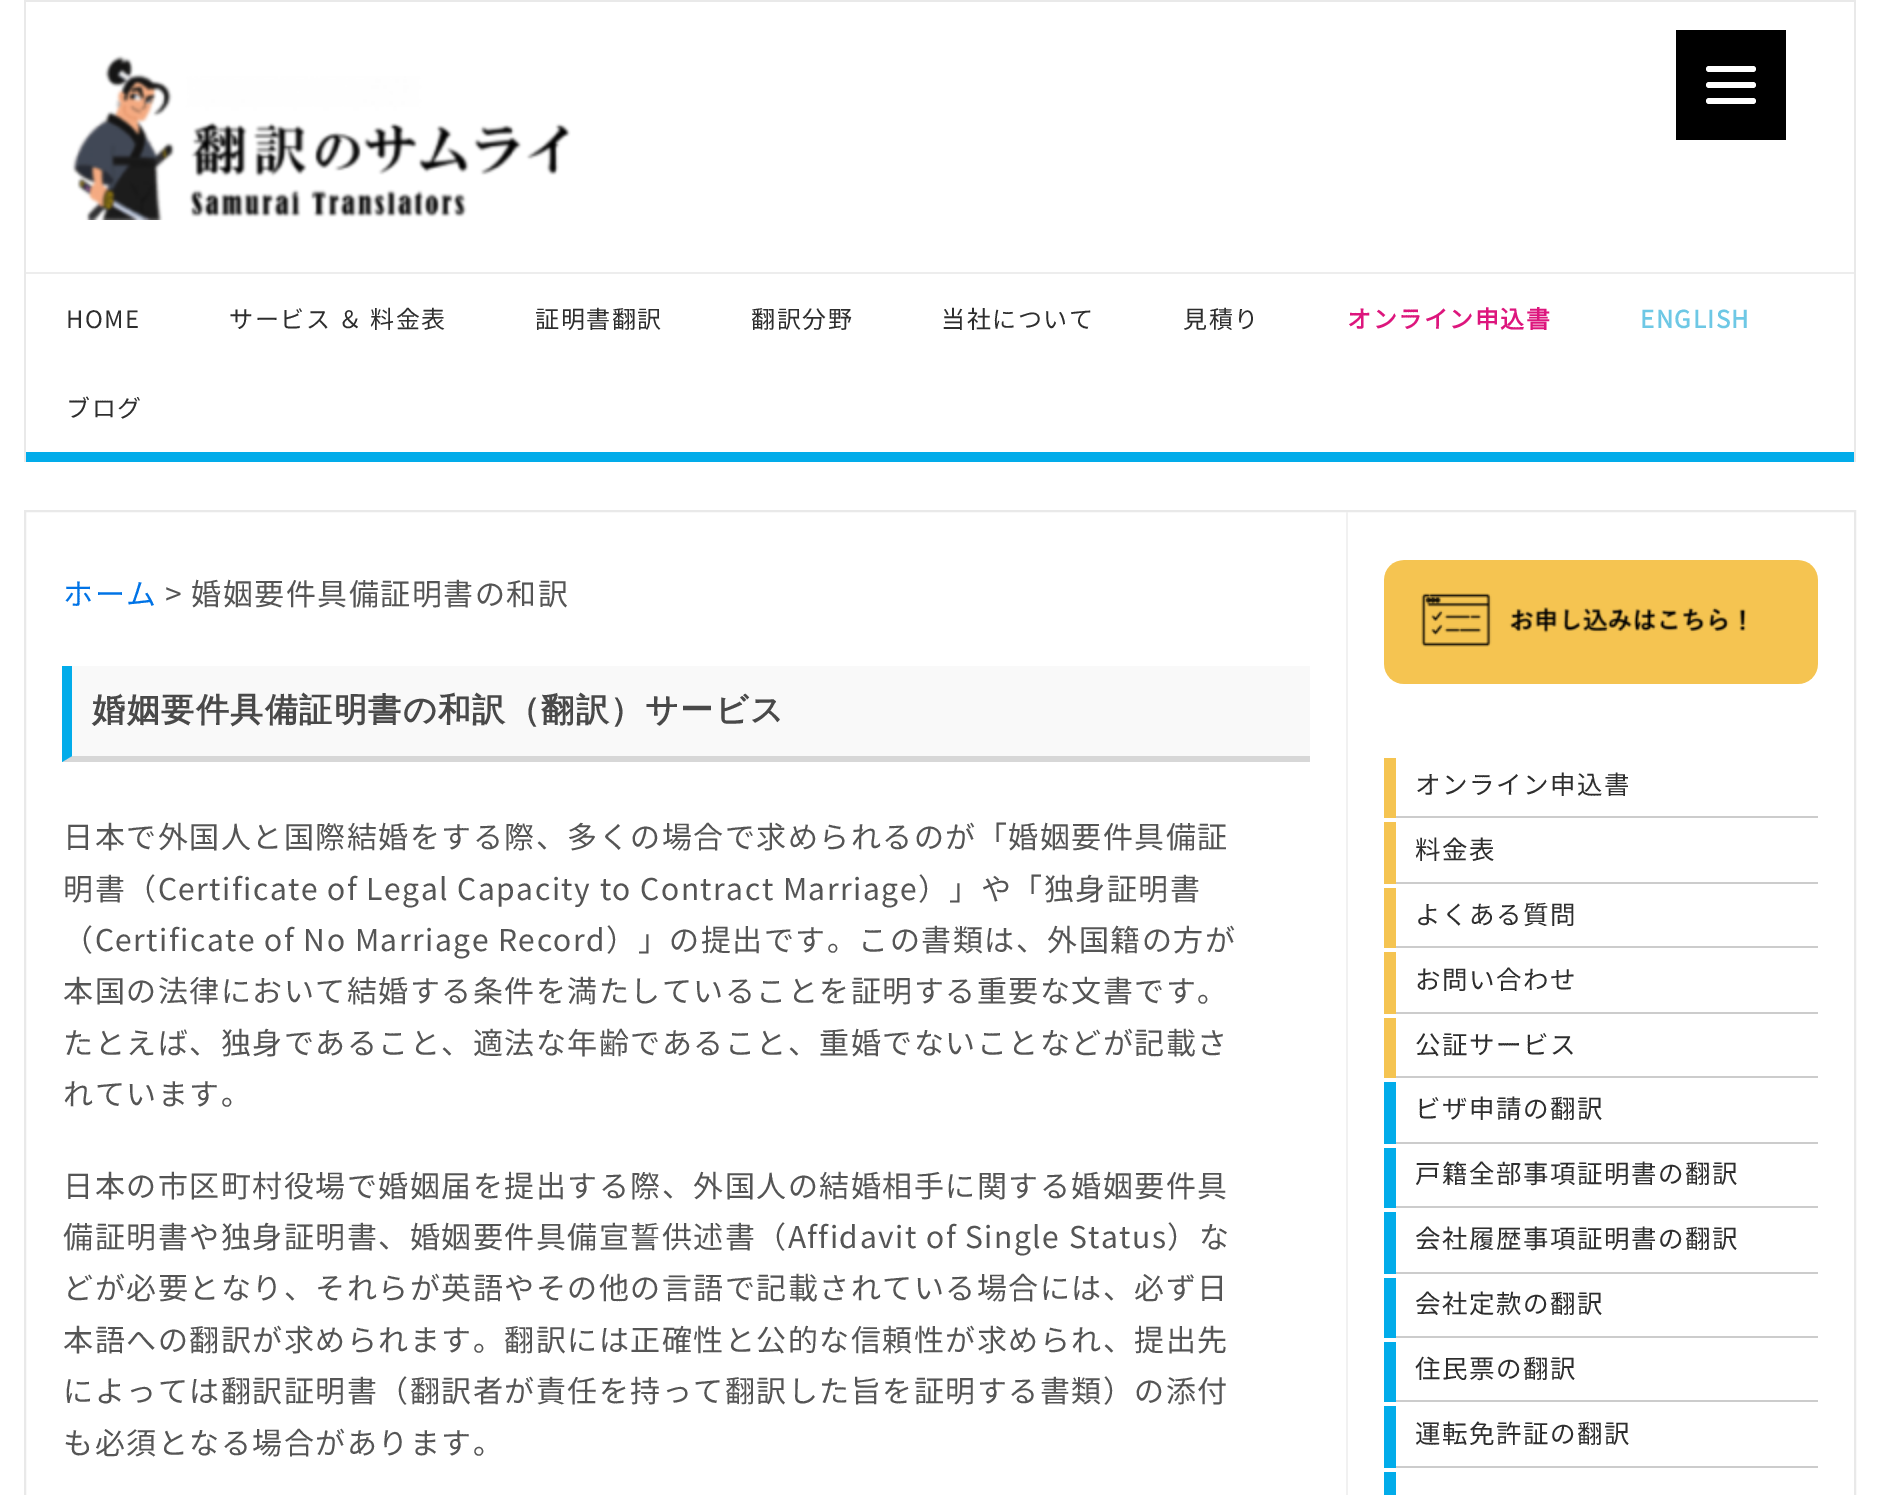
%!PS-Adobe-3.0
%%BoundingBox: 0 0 1879 1495
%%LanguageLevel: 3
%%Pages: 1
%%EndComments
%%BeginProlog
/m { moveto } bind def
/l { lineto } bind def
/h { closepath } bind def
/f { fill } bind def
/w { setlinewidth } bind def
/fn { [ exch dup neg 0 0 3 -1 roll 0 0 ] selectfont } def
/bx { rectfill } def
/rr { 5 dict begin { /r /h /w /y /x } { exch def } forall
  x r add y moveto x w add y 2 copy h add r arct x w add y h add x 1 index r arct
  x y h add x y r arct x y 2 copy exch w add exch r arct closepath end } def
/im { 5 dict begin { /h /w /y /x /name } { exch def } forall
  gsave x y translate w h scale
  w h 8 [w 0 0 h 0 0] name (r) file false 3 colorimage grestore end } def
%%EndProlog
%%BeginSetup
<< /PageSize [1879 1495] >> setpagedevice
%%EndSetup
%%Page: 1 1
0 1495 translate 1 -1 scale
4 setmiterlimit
1 setgray
0 0 1879 1495 bx
0 setgray
1676 30 110 110 bx
1 setgray
1706 82 50 6 3 rr f
1706 66 50 6 3 rr f
1706 98 50 6 3 rr f
0.914 setgray
24 0 1832 2 bx
1854 0 2 462 bx
24 0 2 462 bx
(image0.raw) 71 55 500 165 im
0.929 setgray
26 272 1828 2 bx
0.008 0.675 0.918 setrgbcolor
26 452 1828 10 bx
/NotoSansJP-Thin 24 fn
0.18 setgray
66 328 m 1.5 0 (HOME) ashow
229 328 m 1.5 0 (サービス ＆ 料金表) ashow
535 328 m 1.5 0 (証明書翻訳) ashow
751 328 m 1.5 0 (翻訳分野) ashow
941 328 m 1.5 0 (当社について) ashow
1183 328 m 1.5 0 (見積り) ashow
/NotoSansJP-Bold 24 fn
0.867 0.086 0.49 setrgbcolor
1347 328 m 1.5 0 (オンライン申込書) ashow
0.431 0.784 0.898 setrgbcolor
1640 328 m 1.5 0 (ENGLISH) ashow
/NotoSansJP-Thin 24 fn
0.18 setgray
66 417 m 1.5 0 (ブログ) ashow
0.914 setgray
2 w
25 511 1830 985 rectstroke
0.945 setgray
1346 512 2 983 bx
/NotoSansJP-Thin 30 fn
0 0.451 0.902 setrgbcolor
63 605 m 1.5 0 (ホーム) ashow
0.333 setgray
165 605 m 1.5 0 (> 婚姻要件具備証明書の和訳) ashow
0.976 setgray
62 666 1248 96 bx
0.843 setgray
1310 762 m 62 762 l 72 756 l 1310 756 l h f
0.008 0.675 0.918 setrgbcolor
62 762 m 62 666 l 72 666 l 72 756 l h f
/WenQuanYiZenHei-Bold 33 fn
0.286 setgray
92 721 m 1.5 0 (婚姻要件具備証明書の和訳（翻訳）サービス) ashow
/NotoSansJP-Thin 30 fn
0.333 setgray
63 848 m 1.5 0 (日本で外国人と国際結婚をする際、多くの場合で求められるのが「婚姻要件具備証) ashow
63 900 m 1.5 0 (明書（Certificate of Legal Capacity to Contract Marriage）」や「独身証明書) ashow
63 951 m 1.5 0 (（Certificate of No Marriage Record）」の提出です。この書類は、外国籍の方が) ashow
63 1002 m 1.5 0 (本国の法律において結婚する条件を満たしていることを証明する重要な文書です。) ashow
63 1054 m 1.5 0 (たとえば、独身であること、適法な年齢であること、重婚でないことなどが記載さ) ashow
63 1105 m 1.5 0 (れています。) ashow
63 1197 m 1.5 0 (日本の市区町村役場で婚姻届を提出する際、外国人の結婚相手に関する婚姻要件具) ashow
63 1248 m 1.5 0 (備証明書や独身証明書、婚姻要件具備宣誓供述書（Affidavit of Single Status）な) ashow
63 1299 m 1.5 0 (どが必要となり、それらが英語やその他の言語で記載されている場合には、必ず日) ashow
63 1351 m 1.5 0 (本語への翻訳が求められます。翻訳には正確性と公的な信頼性が求められ、提出先) ashow
63 1402 m 1.5 0 (によっては翻訳証明書（翻訳者が責任を持って翻訳した旨を証明する書類）の添付) ashow
63 1454 m 1.5 0 (も必須となる場合があります。) ashow
(image1.raw) 1384 560 434 124 im
0.961 0.769 0.318 setrgbcolor
1384 758 12 60 bx
/NotoSansJP-Thin 25.5 fn
0.18 setgray
1415 794 m 1.5 0 (オンライン申込書) ashow
0.8 setgray
1396 816 422 2 bx
0.961 0.769 0.318 setrgbcolor
1384 822 12 62 bx
0.18 setgray
1415 859 m 1.5 0 (料金表) ashow
0.8 setgray
1396 882 422 2 bx
0.961 0.769 0.318 setrgbcolor
1384 888 12 60 bx
0.18 setgray
1415 924 m 1.5 0 (よくある質問) ashow
0.8 setgray
1396 946 422 2 bx
0.961 0.769 0.318 setrgbcolor
1384 952 12 62 bx
0.18 setgray
1415 989 m 1.5 0 (お問い合わせ) ashow
0.8 setgray
1396 1012 422 2 bx
0.961 0.769 0.318 setrgbcolor
1384 1018 12 60 bx
0.18 setgray
1415 1054 m 1.5 0 (公証サービス) ashow
0.8 setgray
1396 1076 422 2 bx
0.008 0.675 0.918 setrgbcolor
1384 1082 12 62 bx
0.18 setgray
1415 1118 m 1.5 0 (ビザ申請の翻訳) ashow
0.8 setgray
1396 1142 422 2 bx
0.008 0.675 0.918 setrgbcolor
1384 1148 12 60 bx
0.18 setgray
1415 1183 m 1.5 0 (戸籍全部事項証明書の翻訳) ashow
0.8 setgray
1396 1206 422 2 bx
0.008 0.675 0.918 setrgbcolor
1384 1212 12 62 bx
0.18 setgray
1415 1248 m 1.5 0 (会社履歴事項証明書の翻訳) ashow
0.8 setgray
1396 1272 422 2 bx
0.008 0.675 0.918 setrgbcolor
1384 1278 12 60 bx
0.18 setgray
1415 1313 m 1.5 0 (会社定款の翻訳) ashow
0.8 setgray
1396 1336 422 2 bx
0.008 0.675 0.918 setrgbcolor
1384 1342 12 60 bx
0.18 setgray
1415 1378 m 1.5 0 (住民票の翻訳) ashow
0.8 setgray
1396 1400 422 2 bx
0.008 0.675 0.918 setrgbcolor
1384 1406 12 62 bx
0.18 setgray
1415 1443 m 1.5 0 (運転免許証の翻訳) ashow
0.8 setgray
1396 1466 422 2 bx
0.008 0.675 0.918 setrgbcolor
1384 1472 12 23 bx
showpage
%%EOF
